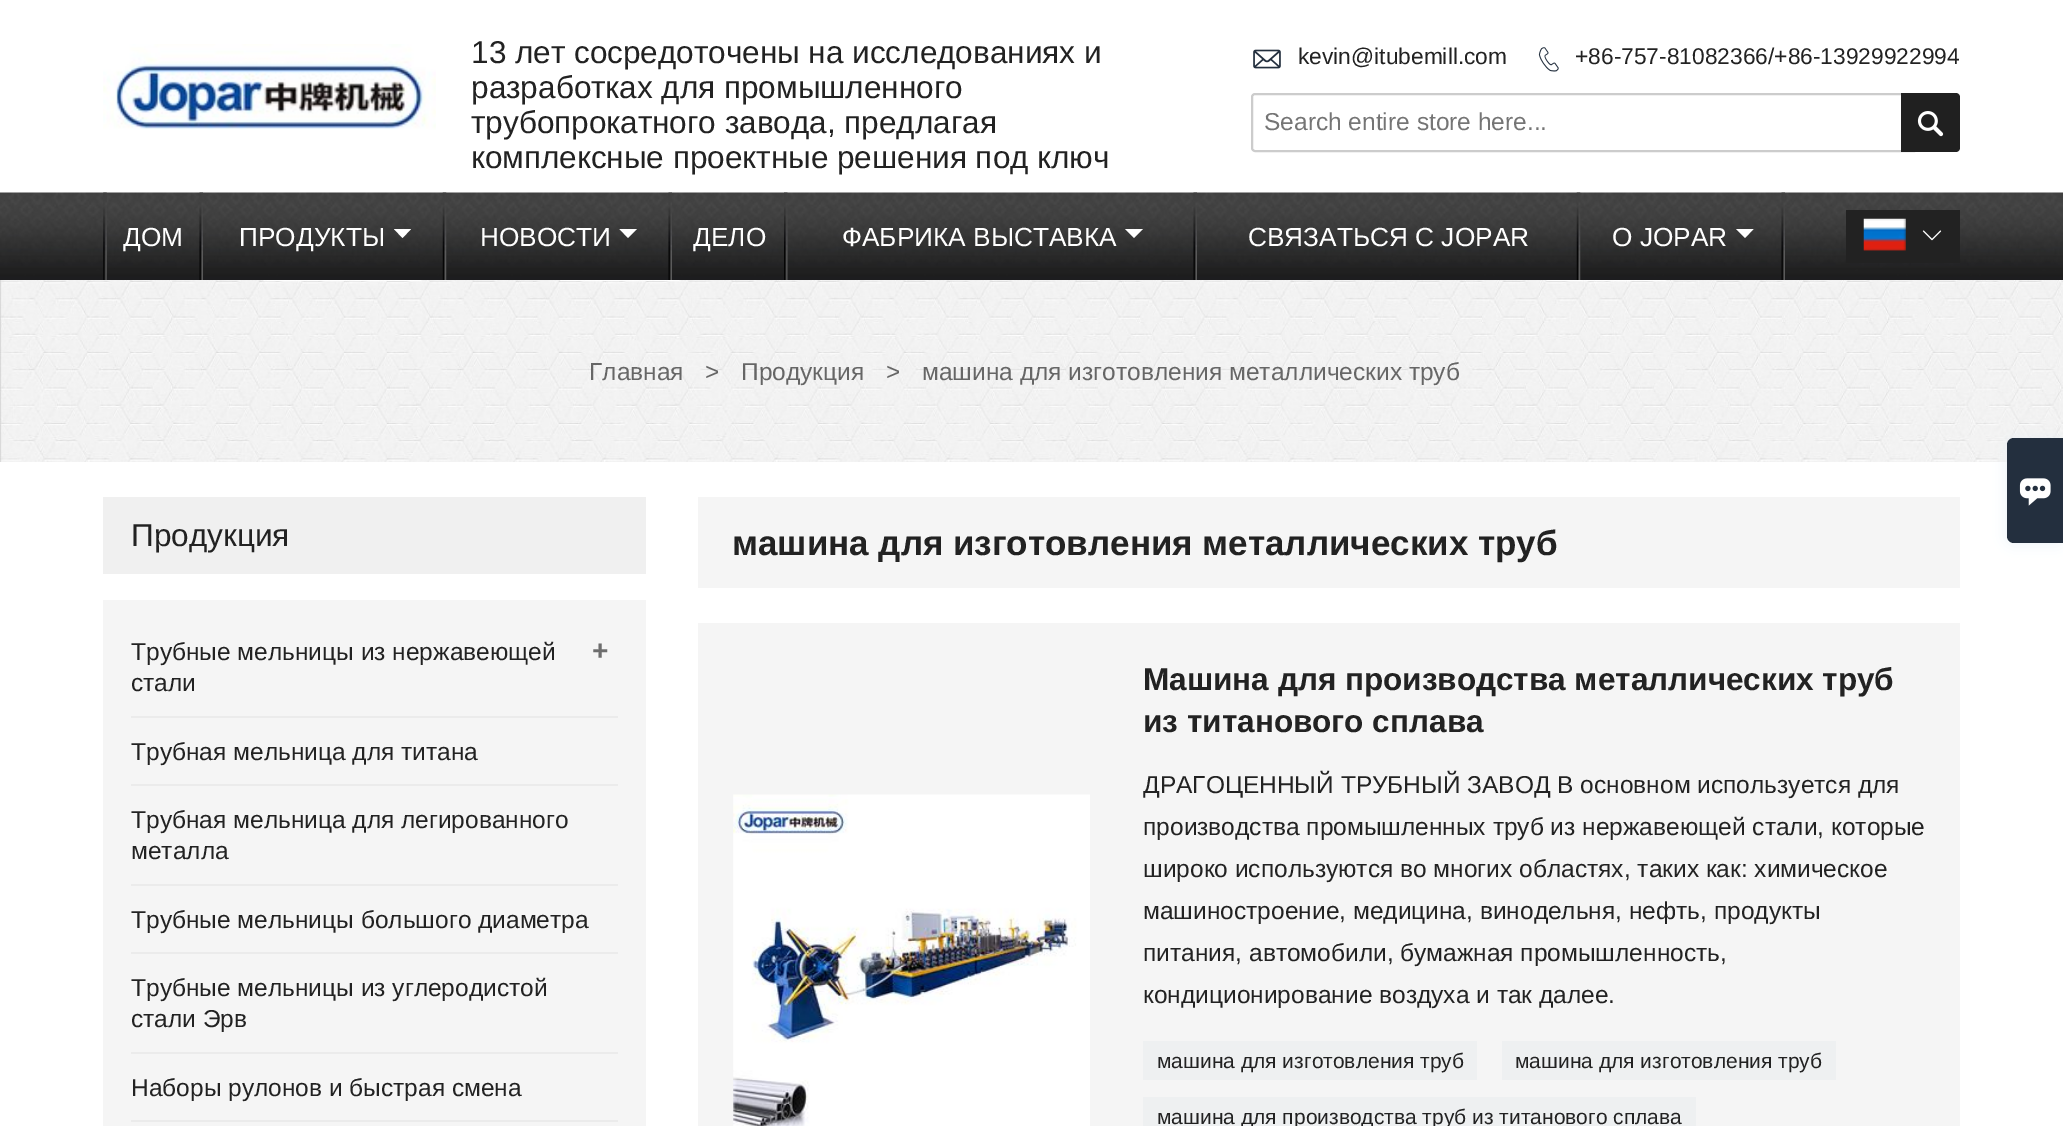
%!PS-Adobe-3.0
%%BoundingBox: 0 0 2063 1126
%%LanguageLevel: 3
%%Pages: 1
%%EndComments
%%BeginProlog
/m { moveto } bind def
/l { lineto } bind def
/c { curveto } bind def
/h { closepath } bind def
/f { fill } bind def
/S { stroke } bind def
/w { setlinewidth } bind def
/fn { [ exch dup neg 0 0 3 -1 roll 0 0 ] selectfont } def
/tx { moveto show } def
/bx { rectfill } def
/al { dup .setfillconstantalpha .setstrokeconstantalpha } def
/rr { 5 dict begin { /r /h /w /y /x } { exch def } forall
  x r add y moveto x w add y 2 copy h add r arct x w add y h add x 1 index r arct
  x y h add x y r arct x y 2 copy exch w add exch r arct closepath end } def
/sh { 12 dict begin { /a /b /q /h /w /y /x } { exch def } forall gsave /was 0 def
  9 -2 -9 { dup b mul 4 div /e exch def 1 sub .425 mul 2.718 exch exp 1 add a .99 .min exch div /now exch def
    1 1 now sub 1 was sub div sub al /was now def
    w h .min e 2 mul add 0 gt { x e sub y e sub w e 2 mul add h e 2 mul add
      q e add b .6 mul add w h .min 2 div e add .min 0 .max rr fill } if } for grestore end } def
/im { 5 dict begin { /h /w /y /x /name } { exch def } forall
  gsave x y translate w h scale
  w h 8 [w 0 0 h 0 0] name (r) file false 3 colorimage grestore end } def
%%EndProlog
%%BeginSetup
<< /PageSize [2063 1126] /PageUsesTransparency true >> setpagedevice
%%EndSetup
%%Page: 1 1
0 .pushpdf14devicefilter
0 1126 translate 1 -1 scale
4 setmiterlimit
1 setgray
0 0 2063 1126 bx
(image0.raw) 103 44 333 86 im
/LiberationSans-Regular 31.5 fn
0.133 setgray
(13 лет сосредоточены на исследованиях и) 471 63 tx
(разработках для промышленного) 471 98 tx
(трубопрокатного завода, предлагая) 471 133 tx
(комплексные проектные решения под ключ) 471 168 tx
(image1.raw) 1253 49 28 20 im
/LiberationSans-Regular 22.75 fn
(kevin@itubemill.com) 1298 64 tx
(image2.raw) 1538 47 21 25 im
(+86-757-81082366/+86-13929922994) 1575 64 tx
0.8 setgray
2 w
1255 94 m 1914 94 l 1914 151 l 1255 151 l 1253.5 151 1252 149.5 1252 148 c 1252 97 l 1252 95.5 1253.5 94 1255 94 c h S
/LiberationSans-Regular 24.5 fn
0.459 setgray
(Search entire store here...) 1264 130 tx
0.125 setgray
1901 93 m 1956 93 l 1958 93 1960 95 1960 97 c 1960 148 l 1960 150 1958 152 1956 152 c 1901 152 l h f
(image3.raw) 1917 111 27 26 im
(image4.raw) 0 192 2063 88 im
(image5.raw) 103 192 4 88 im
(image6.raw) 199 192 4 88 im
/LiberationSans-Regular 26.25 fn
1 setgray
(ДОМ) 123 246 tx
(image7.raw) 442 192 5 88 im
(ПРОДУКТЫ) 239 246 tx
394 229 m 411 229 l 402.5 238 l h f
(image8.raw) 668 192 4 88 im
(НОВОСТИ) 480 246 tx
619.5 229 m 637 229 l 628 238 l h f
(image9.raw) 784 192 4 88 im
(ДЕЛО) 693 246 tx
(image10.raw) 1193 192 4 88 im
(ФАБРИКА ВЫСТАВКА) 842 246 tx
1125 229 m 1143 229 l 1134 238 l h f
(image11.raw) 1576 192 5 88 im
(СВЯЗАТЬСЯ С JOPAR) 1248 246 tx
(image12.raw) 1781 192 4 88 im
(О JOPAR) 1612 246 tx
1736 229 m 1753.5 229 l 1745 238 l h f
0.133 setgray
1846 210 114 53 bx
(image13.raw) 1863 218 43 33 im
(image14.raw) 1922 230 20 11 im
(image15.raw) 0 280 2063 182 im
/LiberationSans-Regular 24.5 fn
0.4 setgray
(Главная) 589 380 tx
(>) 705 380 tx
(Продукция) 741 380 tx
(>) 886 380 tx
(машина для изготовления металлических труб) 922 380 tx
0.941 setgray
103 497 543 77 bx
/LiberationSans-Regular 31.5 fn
0.133 setgray
(Продукция) 131 546 tx
0.961 setgray
103 600 543 526 bx
0.922 setgray
131 716 487 2 bx
/LiberationSans-Regular 24.5 fn
0.133 setgray
(Трубные мельницы из нержавеющей) 131 660 tx
(стали) 131 691 tx
/LiberationSans-Bold 28 fn
0.427 setgray
(+) 592 660 tx
0.922 setgray
131 784 487 2 bx
/LiberationSans-Regular 24.5 fn
0.133 setgray
(Трубная мельница для титана) 131 760 tx
0.922 setgray
131 884 487 2 bx
0.133 setgray
(Трубная мельница для легированного) 131 828 tx
(металла) 131 859 tx
0.922 setgray
131 952 487 2 bx
0.133 setgray
(Трубные мельницы большого диаметра) 131 928 tx
0.922 setgray
131 1052 487 2 bx
0.133 setgray
(Трубные мельницы из углеродистой) 131 996 tx
(стали Эрв) 131 1027 tx
0.922 setgray
131 1120 487 2 bx
0.133 setgray
(Наборы рулонов и быстрая смена) 131 1096 tx
0.961 setgray
698 497 1262 91 bx
/LiberationSans-Bold 35 fn
0.133 setgray
(машина для изготовления металлических труб) 732 555 tx
0.961 setgray
698 623 1262 503 bx
(image16.raw) 733 794 357 332 im
/LiberationSans-Bold 31.5 fn
0.133 setgray
(Машина для производства металлических труб) 1143 690 tx
(из титанового сплава) 1143 732 tx
/LiberationSans-Regular 24.5 fn
(ДРАГОЦЕННЫЙ ТРУБНЫЙ ЗАВОД В основном используется для) 1143 793 tx
(производства промышленных труб из нержавеющей стали, которые) 1143 835 tx
(широко используются во многих областях, таких как: химическое) 1143 877 tx
(машиностроение, медицина, винодельня, нефть, продукты) 1143 919 tx
(питания, автомобили, бумажная промышленность,) 1143 961 tx
(кондиционирование воздуха и так далее.) 1143 1003 tx
0.933 0.941 0.945 setrgbcolor
1143 1041 334 39 bx
/LiberationSans-Regular 21 fn
0.133 setgray
(машина для изготовления труб) 1157 1068 tx
0.933 0.941 0.945 setrgbcolor
1502 1041 334 39 bx
0.133 setgray
(машина для изготовления труб) 1515 1068 tx
0.933 0.941 0.945 setrgbcolor
1143 1097 553 29 bx
0.133 setgray
(машина для производства труб из титанового сплава) 1157 1124 tx
0.918 0.941 0.965 setrgbcolor
2007 438 56 105 7 7 1 sh
0.137 0.184 0.243 setrgbcolor
2014 438 m 2063 438 l 2063 543 l 2014 543 l 2010 543 2007 540 2007 536 c 2007 445 l 2007 441 2010 438 2014 438 c h f
(image17.raw) 2019 478 32 28 im
.poppdf14devicefilter showpage
%%EOF
